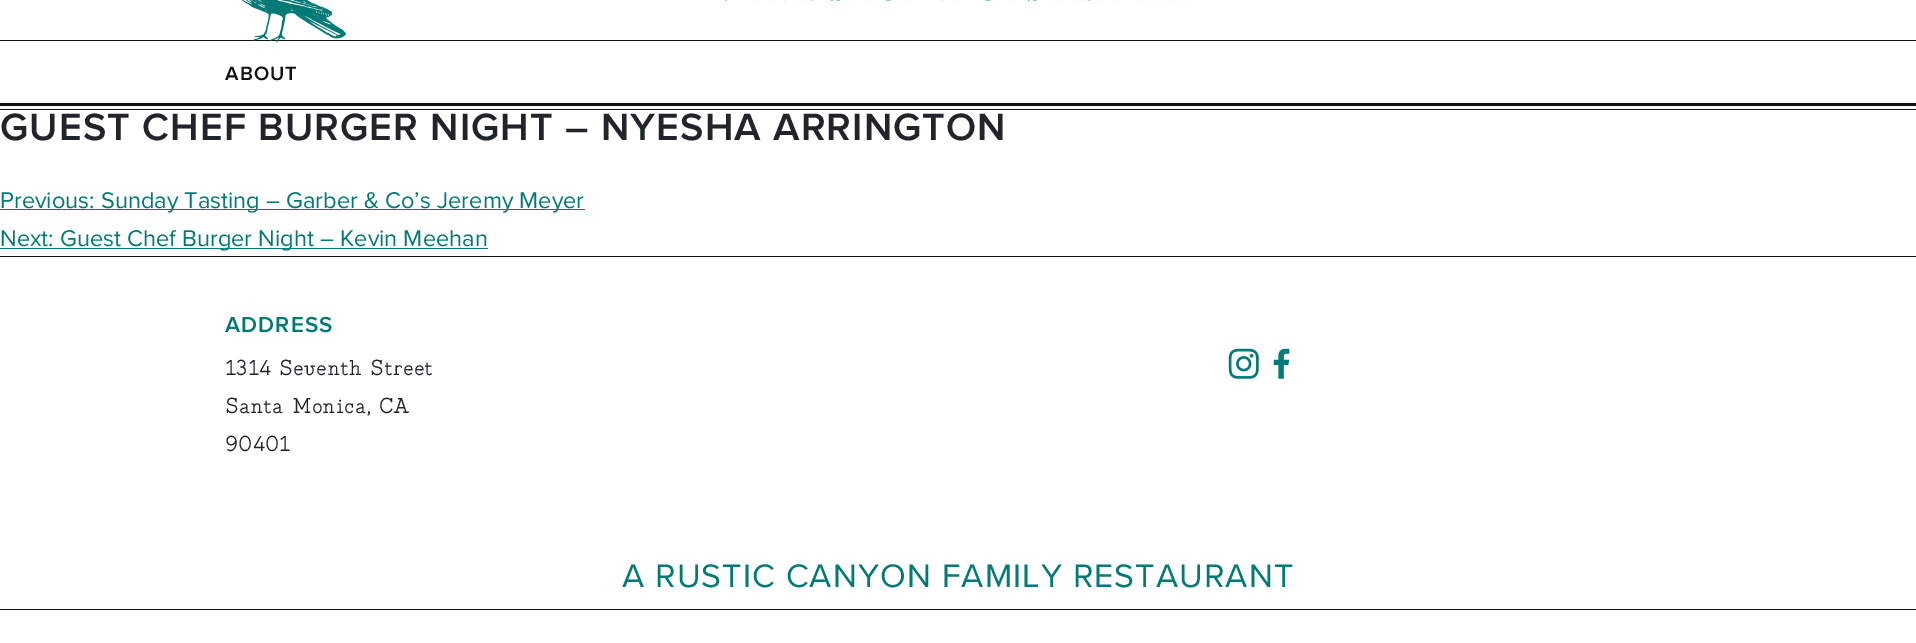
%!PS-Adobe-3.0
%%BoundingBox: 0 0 1916 643
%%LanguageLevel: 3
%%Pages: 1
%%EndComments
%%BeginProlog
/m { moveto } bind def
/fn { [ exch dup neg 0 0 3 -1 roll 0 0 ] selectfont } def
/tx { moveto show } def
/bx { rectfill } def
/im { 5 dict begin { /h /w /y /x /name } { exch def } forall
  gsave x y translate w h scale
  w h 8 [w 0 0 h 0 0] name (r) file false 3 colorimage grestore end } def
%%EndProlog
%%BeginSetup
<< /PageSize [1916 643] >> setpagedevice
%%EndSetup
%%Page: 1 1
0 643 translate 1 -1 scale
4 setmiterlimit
1 setgray
0 0 1916 643 bx
0.067 setgray
0 40 1916 1 bx
(image0.raw) 241 0 105 43 im
(image1.raw) 724 0 478 1 im
0 103 1916 3 bx
/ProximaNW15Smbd-SemiBold 20 fn
225 80 m 1.1 0 (ABOUT) ashow
0 109 1916 1 bx
/ProximaNW15Smbd-SemiBold 39.4 fn
0.129 0.145 0.161 setrgbcolor
0 140 m 1.1 0 (GUEST CHEF BURGER NIGHT – NYESHA ARRINGTON) ashow
0.012 0.478 0.463 setrgbcolor
0 209 585 1 bx
/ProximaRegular-Regular 23.6 fn
(Previous: Sunday Tasting – Garber & Co’s Jeremy Meyer) 0 208 tx
0 248 488 1 bx
(Next: Guest Chef Burger Night – Kevin Meehan) 0 246 tx
0.067 setgray
0 256 1916 1 bx
/ProximaNW15Smbd-SemiBold 22.5 fn
0.012 0.478 0.463 setrgbcolor
225 332 m 1.1 0 (ADDRESS) ashow
/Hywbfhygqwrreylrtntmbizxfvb-Regular 23.6 fn
0.129 0.145 0.161 setrgbcolor
(1314 Seventh Street) 225 375 tx
(Santa Monica, CA) 225 413 tx
(90401) 225 451 tx
(image2.raw) 1228 348 31 31 im
(image3.raw) 1273 348 17 31 im
/ProximaRegular-Regular 33.75 fn
0.012 0.478 0.463 setrgbcolor
622 587 m 1.1 0 (A RUSTIC CANYON FAMILY RESTAURANT) ashow
0.067 setgray
0 609 1916 1 bx
showpage
%%EOF
